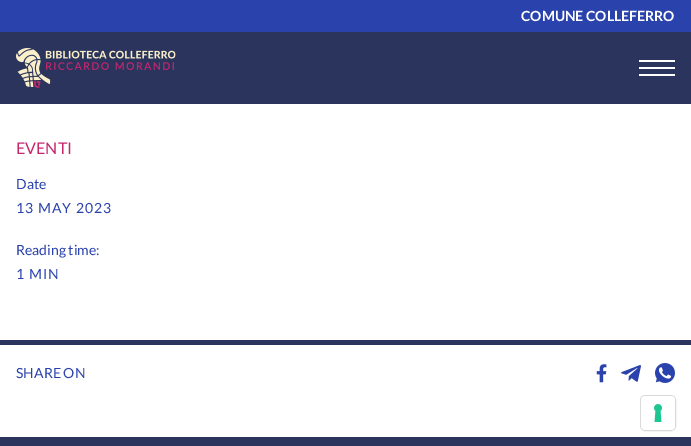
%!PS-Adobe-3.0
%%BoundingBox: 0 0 691 446
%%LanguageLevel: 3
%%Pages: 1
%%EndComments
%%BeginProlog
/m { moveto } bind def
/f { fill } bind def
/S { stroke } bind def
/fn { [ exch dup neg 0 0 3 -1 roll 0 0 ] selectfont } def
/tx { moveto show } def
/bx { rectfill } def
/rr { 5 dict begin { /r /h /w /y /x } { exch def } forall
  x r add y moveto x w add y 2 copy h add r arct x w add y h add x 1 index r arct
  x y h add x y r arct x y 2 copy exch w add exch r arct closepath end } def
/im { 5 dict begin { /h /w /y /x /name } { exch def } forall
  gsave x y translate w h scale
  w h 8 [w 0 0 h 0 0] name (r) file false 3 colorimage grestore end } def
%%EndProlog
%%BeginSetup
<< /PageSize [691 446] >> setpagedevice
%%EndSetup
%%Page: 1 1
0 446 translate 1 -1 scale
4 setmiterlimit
1 setgray
0 0 691 446 bx
0.165 0.259 0.675 setrgbcolor
0 0 691 32 bx
/Lato-Bold 14 fn
1 setgray
(COMUNE COLLEFERRO) 521 21 tx
0.169 0.204 0.361 setrgbcolor
0 32 691 72 bx
(image0.raw) 16 48 160 40 im
1 setgray
639 60 36 2 bx
639 67 36 2 bx
639 74 36 2 bx
/Lato-Regular 16 fn
0.776 0.145 0.431 setrgbcolor
(EVENTI) 16 154 tx
/Lato-Regular 14 fn
0.165 0.259 0.675 setrgbcolor
(Date) 16 189 tx
16 213 m 1 0 (13 MAY 2023) ashow
(Reading time:) 16 255 tx
16 279 m 1 0 (1 MIN) ashow
0.169 0.204 0.361 setrgbcolor
0 340 691 5 bx
0.165 0.259 0.675 setrgbcolor
(SHARE ON) 16 378 tx
(image1.raw) 596 364 11 19 im
(image2.raw) 621 365 20 17 im
(image3.raw) 655 363 20 20 im
0.169 0.204 0.361 setrgbcolor
0 437 691 9 bx
0.851 setgray
640.5 395.5 35 35 4.5 rr S
1 setgray
641 396 34 34 4 rr f
(image4.raw) 654 404 8 18 im
showpage
%%EOF
